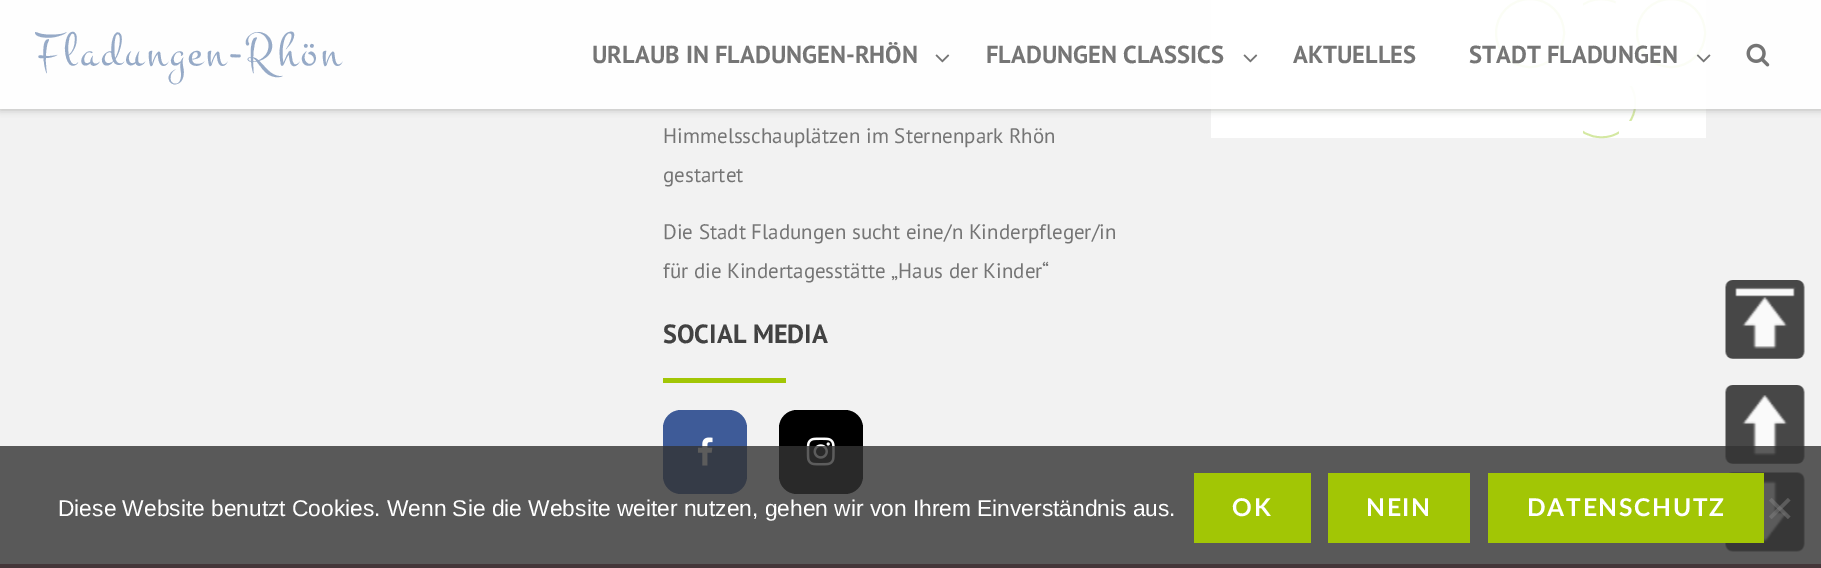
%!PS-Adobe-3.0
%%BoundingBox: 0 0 1821 568
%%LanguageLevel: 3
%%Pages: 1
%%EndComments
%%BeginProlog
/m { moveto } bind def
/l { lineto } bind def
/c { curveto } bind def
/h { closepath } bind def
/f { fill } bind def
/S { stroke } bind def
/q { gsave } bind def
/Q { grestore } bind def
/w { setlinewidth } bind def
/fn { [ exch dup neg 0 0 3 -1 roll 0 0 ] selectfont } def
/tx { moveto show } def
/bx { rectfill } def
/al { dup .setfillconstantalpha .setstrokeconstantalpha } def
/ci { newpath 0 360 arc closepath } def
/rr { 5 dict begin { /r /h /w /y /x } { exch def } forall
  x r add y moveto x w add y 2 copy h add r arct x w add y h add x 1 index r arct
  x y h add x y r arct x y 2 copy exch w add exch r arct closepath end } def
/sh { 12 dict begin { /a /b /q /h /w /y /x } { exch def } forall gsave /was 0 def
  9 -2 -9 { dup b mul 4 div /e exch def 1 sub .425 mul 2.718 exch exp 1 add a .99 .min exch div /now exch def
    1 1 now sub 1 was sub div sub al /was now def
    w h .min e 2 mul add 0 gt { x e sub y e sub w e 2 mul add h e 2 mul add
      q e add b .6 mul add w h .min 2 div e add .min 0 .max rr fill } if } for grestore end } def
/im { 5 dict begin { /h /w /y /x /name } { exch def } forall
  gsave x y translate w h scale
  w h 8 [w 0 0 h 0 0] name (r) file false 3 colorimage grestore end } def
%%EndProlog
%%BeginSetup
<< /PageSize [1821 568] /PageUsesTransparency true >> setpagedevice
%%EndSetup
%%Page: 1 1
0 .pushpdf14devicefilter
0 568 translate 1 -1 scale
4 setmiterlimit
0.949 setgray
0 0 1821 568 bx
1 setgray
1211 0 495 138 bx
0.659 0.82 0.267 setrgbcolor
2 w
1530 33 34 ci S
q
1566 15 m 1583.5 15 l 1583.5 -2.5 l 1618.5 -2.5 l 1618.5 15 l 1636 15 l 1636 50 l 1618.5 50 l 1618.5 67.5 l 1583.5 67.5 l 1583.5 50 l 1566 50 l h clip newpath
1.8 w
1577 9 m 1590.5 -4 1612 -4 1625.5 9 c S
Q
1 setgray
1615 -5 25 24 12 rr f
0.659 0.82 0.267 setrgbcolor
1671 33 34 ci S
q
1566 86 m 1583.5 86 l 1583.5 68.5 l 1618.5 68.5 l 1618.5 86 l 1636 86 l 1636 121 l 1618.5 121 l 1618.5 138.5 l 1583.5 138.5 l 1583.5 121 l 1566 121 l h clip newpath
0.831 0.91 0.635 setrgbcolor
1.8 w
1625.5 79 m 1649 103 1627.5 143.5 1594.5 136.5 c 1588 135.5 1582 132 1577 127.5 c S
Q
q
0 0 m 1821 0 l 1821 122 l 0 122 l h 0 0 m 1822 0 l 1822 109 l 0 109 l h eoclip newpath
0.655 0.663 0.643 setrgbcolor
0 2 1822 108 0 3.5 0.75 sh
Q
0.95 al
1 setgray
0 0 1821 109 bx
/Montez-Regular 49 fn
1 al
0.588 0.667 0.78 setrgbcolor
35 65 m 3.5 0 (Fladungen-Rhön) ashow
/PTSans-Bold 24.5 fn
0.459 setgray
(URLAUB IN FLADUNGEN-RHÖN) 592 63 tx
(image0.raw) 935 54 15 9 im
(FLADUNGEN CLASSICS) 986 63 tx
(image1.raw) 1243 54 15 9 im
(AKTUELLES) 1293 63 tx
(STADT FLADUNGEN) 1469 63 tx
(image2.raw) 1696 54 15 9 im
(image3.raw) 1746 43 24 24 im
/PTSans-Regular 21 fn
(Himmelsschauplätzen im Sternenpark Rhön) 663 143 tx
(gestartet) 663 182 tx
(Die Stadt Fladungen sucht eine/n Kinderpfleger/in) 663 239 tx
(für die Kindertagesstätte „Haus der Kinder“) 663 278 tx
/PTSans-Bold 26.25 fn
0.259 setgray
(SOCIAL MEDIA) 663 343 tx
0.635 0.776 0.02 setrgbcolor
663 378 123 5 bx
0.243 0.357 0.596 setrgbcolor
663 410 84 84 18 rr f
(image4.raw) 697 437 16 29 im
0 setgray
779 410 84 84 18 rr f
(image5.raw) 806 437 29 29 im
0.537 0.251 0.318 setrgbcolor
0 564 1821 4 bx
0.937 setgray
1726 385 78 79 7 rr f
(image7.raw) 1725 385 80 79 im
1726 473 78 78 7 rr f
(image8.raw) 1725 472 80 80 im
0.8 al
0.2 setgray
0 446 1821 122 bx
/LiberationSans-Regular 22.75 fn
1 al
1 setgray
(Diese Website benutzt Cookies. Wenn Sie die Website weiter nutzen, gehen wir von Ihrem Einverständnis aus.) 58 516 tx
0.635 0.776 0.02 setrgbcolor
1194 473 117 70 bx
/Lato-Bold 24.5 fn
1 setgray
1232 516 m 1.75 0 (OK) ashow
0.635 0.776 0.02 setrgbcolor
1328 473 142 70 bx
1 setgray
1366 516 m 1.75 0 (NEIN) ashow
0.635 0.776 0.02 setrgbcolor
1488 473 276 70 bx
1 setgray
1527 516 m 1.75 0 (DATENSCHUTZ) ashow
0.5 al
0.502 setgray
1788 498 m 1790.5 500.5 l 1771.5 519 l 1769 516.5 l h f
1769 500.5 m 1771.5 498 l 1790.5 516.5 l 1788 519 l h f
1 al
0.937 setgray
1726 280 78 79 7 rr f
(image6.raw) 1725 280 80 79 im
.poppdf14devicefilter showpage
%%EOF
